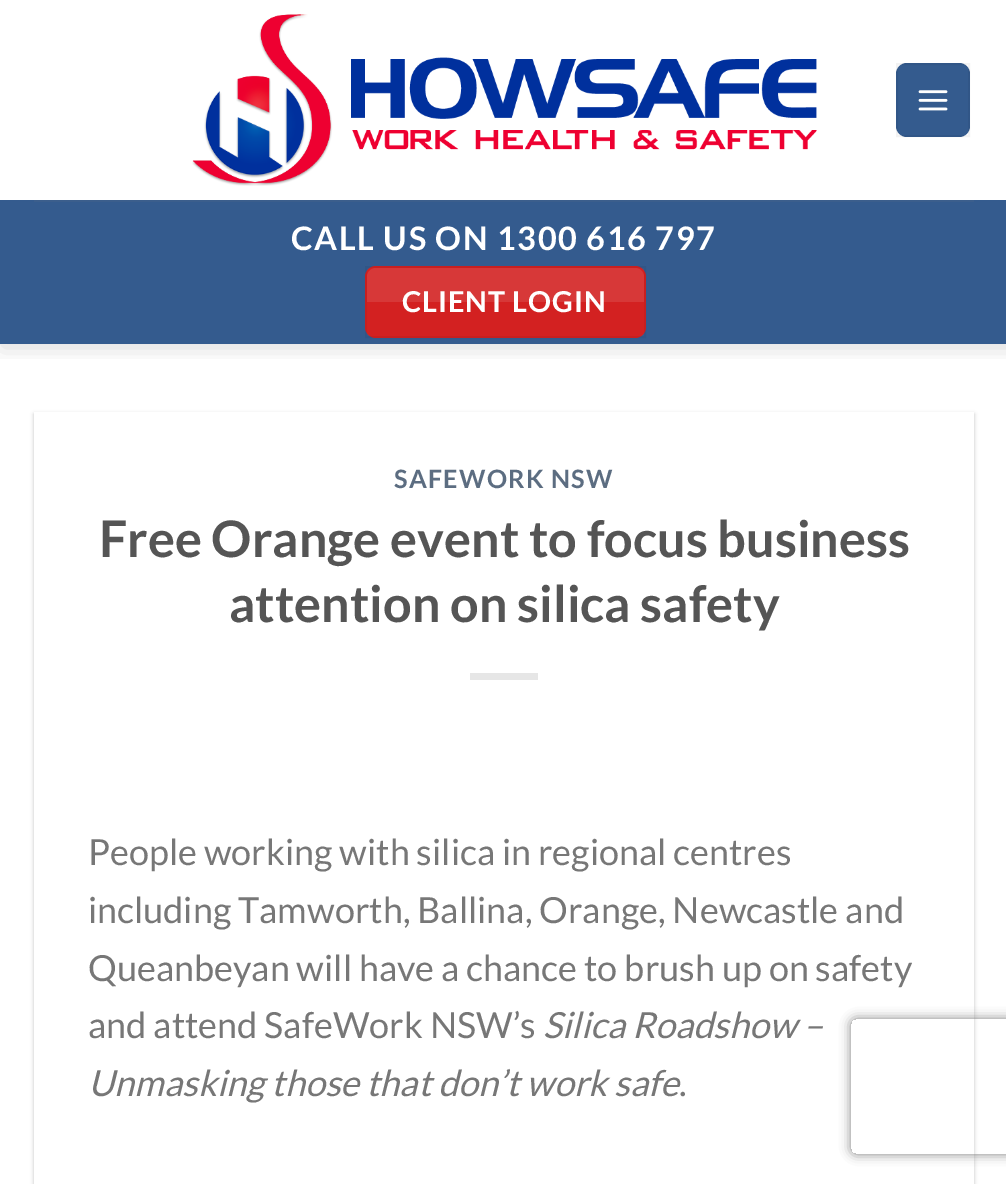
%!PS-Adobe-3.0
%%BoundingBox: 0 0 1006 1184
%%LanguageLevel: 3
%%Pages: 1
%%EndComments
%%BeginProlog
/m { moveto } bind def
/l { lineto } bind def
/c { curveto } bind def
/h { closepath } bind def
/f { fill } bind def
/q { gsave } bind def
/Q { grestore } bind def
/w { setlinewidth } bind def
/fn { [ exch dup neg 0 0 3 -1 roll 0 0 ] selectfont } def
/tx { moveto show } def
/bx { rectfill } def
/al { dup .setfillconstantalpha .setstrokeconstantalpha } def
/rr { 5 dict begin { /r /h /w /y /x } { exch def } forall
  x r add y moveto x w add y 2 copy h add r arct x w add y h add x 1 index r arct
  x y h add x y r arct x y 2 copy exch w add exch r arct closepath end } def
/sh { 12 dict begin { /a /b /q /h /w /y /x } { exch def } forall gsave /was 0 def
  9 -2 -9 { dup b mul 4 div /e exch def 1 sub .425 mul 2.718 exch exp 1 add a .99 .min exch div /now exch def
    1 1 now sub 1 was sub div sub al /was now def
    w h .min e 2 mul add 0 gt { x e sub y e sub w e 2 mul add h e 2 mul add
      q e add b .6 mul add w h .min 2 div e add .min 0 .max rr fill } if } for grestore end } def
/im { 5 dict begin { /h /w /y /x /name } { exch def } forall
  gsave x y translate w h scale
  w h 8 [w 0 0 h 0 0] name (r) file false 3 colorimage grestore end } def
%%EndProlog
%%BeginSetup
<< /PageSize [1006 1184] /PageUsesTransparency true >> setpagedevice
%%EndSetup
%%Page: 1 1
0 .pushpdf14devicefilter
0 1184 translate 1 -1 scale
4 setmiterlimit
1 setgray
0 0 1006 1184 bx
q
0 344 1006 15 rectclip
0 setgray
2 2 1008 345 0 11 0.15 sh
Q
(image0.raw) 192 14 625 172 im
0.204 0.357 0.557 setrgbcolor
896 63 74 74 11 rr f
0.05 al
0 setgray
2 w
897 64 72 72 rectstroke
1 al
(image1.raw) 918 90 30 21 im
0.204 0.357 0.557 setrgbcolor
0 200 1006 144 bx
0.231 0.369 0.549 setrgbcolor
34 200 940 2 bx
/Lato-Bold 32.4 fn
1 setgray
291 250 m 1.6 0 (CALL US ON 1300 616 797) ashow
0.827 0.129 0.129 setrgbcolor
365 266 281 72 11 rr f
0.05 al
0 setgray
366 267 279 70 rectstroke
0.1 al
1 setgray
376 268 m 635 268 l 640 268 644 272 644 277 c 644 302 l 367 302 l 367 277 l 367 272 371 268 376 268 c h f
/Lato-Bold 28.75 fn
1 al
402 312 m 0.9 0 (CLIENT LOGIN) ashow
q
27 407 m 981 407 l 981 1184 l 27 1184 l h 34 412 m 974 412 l 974 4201 l 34 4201 l h eoclip newpath
0 setgray
34 414 940 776 0 2 0.24 sh
Q
/Lato-Bold 25.25 fn
0.361 0.427 0.506 setrgbcolor
394 488 m 1.25 0 (SAFEWORK NSW) ashow
/Lato-Bold 50.4 fn
0.333 setgray
(Free Orange event to focus business) 99 557 tx
(attention on silica safety) 229 622 tx
0.902 setgray
470 673 68 7 bx
/Lato-Regular 36 fn
0.467 setgray
(People working with silica in regional centres) 88 865 tx
(including Tamworth, Ballina, Orange, Newcastle and) 88 923 tx
(Queanbeyan will have a chance to brush up on safety) 88 981 tx
(and attend SafeWork NSW’s) 88 1038 tx
/Lato-Italic 36 fn
(Silica Roadshow –) 543 1038 tx
(Unmasking those that don’t work safe) 88 1096 tx
/Lato-Regular 36 fn
(.) 679 1096 tx
q
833 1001 m 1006 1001 l 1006 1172 l 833 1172 l h 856 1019 m 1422 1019 l 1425 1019 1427 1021 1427 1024 c 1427 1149 l 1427 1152 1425 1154 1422 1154 c 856 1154 l 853 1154 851 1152 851 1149 c 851 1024 l 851 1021 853 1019 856 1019 c h eoclip newpath
0.502 setgray
851 1019 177 135 5 5.5 1 sh
Q
.poppdf14devicefilter showpage
%%EOF
